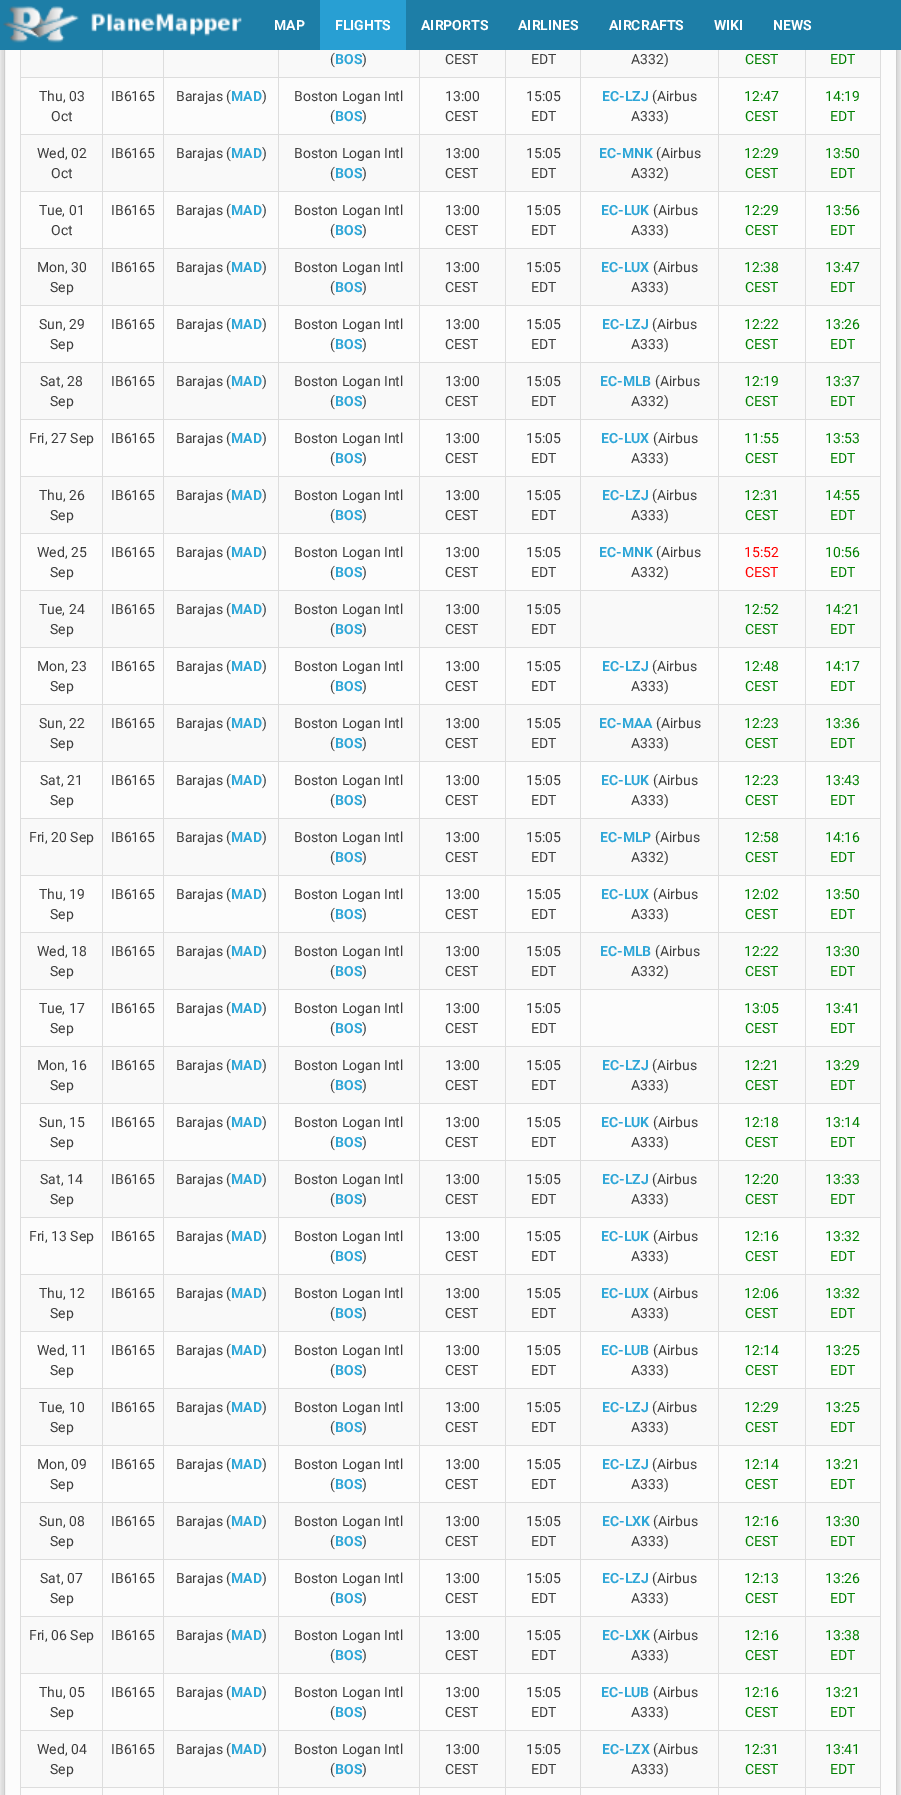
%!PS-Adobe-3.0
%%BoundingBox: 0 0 901 1795
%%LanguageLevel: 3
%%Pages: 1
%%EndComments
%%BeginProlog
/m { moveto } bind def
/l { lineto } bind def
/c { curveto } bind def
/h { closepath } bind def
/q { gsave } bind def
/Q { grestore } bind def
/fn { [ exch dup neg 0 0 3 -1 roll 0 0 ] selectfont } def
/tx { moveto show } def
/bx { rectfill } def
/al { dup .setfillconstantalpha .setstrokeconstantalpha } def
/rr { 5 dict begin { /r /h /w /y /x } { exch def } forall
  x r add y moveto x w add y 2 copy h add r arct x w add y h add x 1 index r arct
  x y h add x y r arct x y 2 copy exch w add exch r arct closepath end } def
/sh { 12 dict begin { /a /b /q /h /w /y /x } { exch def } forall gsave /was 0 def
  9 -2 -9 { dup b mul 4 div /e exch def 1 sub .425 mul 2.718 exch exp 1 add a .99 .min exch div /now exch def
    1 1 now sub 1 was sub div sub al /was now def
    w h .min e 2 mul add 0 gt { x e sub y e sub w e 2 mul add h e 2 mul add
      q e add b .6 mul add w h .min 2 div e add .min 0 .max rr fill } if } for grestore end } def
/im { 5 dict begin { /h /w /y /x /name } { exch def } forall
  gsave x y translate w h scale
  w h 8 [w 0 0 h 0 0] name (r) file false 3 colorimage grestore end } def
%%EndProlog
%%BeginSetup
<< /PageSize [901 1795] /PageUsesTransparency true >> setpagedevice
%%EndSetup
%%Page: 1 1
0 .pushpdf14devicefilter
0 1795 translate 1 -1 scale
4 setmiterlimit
1 setgray
0 0 901 1795 bx
0.988 setgray
2 50 897 1745 bx
q
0 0 m 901 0 l 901 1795 l 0 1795 l h 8 -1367 m 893 -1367 l 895 -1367 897 -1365 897 -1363 c 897 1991 l 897 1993 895 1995 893 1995 c 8 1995 l 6 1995 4 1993 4 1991 c 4 -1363 l 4 -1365 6 -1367 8 -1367 c h eoclip newpath
0 setgray
2 -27 897 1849 6 7 0.12 sh
Q
0.867 setgray
4.5 -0.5 892 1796 rectstroke
q
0 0 m 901 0 l 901 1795 l 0 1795 l h 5 -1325 m 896 -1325 l 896 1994 l 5 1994 l h eoclip newpath
0 setgray
3 -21 895 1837 0 7 0.12 sh
Q
0.114 0.494 0.655 setrgbcolor
0 0 901 50 bx
(image0.raw) 3 6 239 37 im
/Roboto-Bold 14 fn
1 setgray
(MAP) 274 30 tx
0.157 0.624 0.827 setrgbcolor
320 0 86 50 bx
1 setgray
(FLIGHTS) 335 30 tx
(AIRPORTS) 421 30 tx
(AIRLINES) 518 30 tx
(AIRCRAFTS) 609 30 tx
(WIKI) 714 30 tx
(NEWS) 773 30 tx
0.867 setgray
880 50 1 1745 bx
20 50 1 1745 bx
0.976 setgray
21 50 859 27 bx
0.867 setgray
805 77 76 1 bx
805 134 76 1 bx
0.976 setgray
21 135 859 56 bx
0.867 setgray
805 191 76 1 bx
805 248 76 1 bx
0.976 setgray
21 249 859 56 bx
0.867 setgray
805 305 76 1 bx
805 362 76 1 bx
0.976 setgray
21 363 859 56 bx
0.867 setgray
805 419 76 1 bx
805 476 76 1 bx
0.976 setgray
21 477 859 56 bx
0.867 setgray
805 533 76 1 bx
805 590 76 1 bx
0.976 setgray
21 591 859 56 bx
0.867 setgray
805 647 76 1 bx
805 704 76 1 bx
0.976 setgray
21 705 859 56 bx
0.867 setgray
805 761 76 1 bx
805 818 76 1 bx
0.976 setgray
21 819 859 56 bx
0.867 setgray
805 875 76 1 bx
805 932 76 1 bx
0.976 setgray
21 933 859 56 bx
0.867 setgray
805 989 76 1 bx
805 1046 76 1 bx
0.976 setgray
21 1047 859 56 bx
0.867 setgray
805 1103 76 1 bx
805 1160 76 1 bx
0.976 setgray
21 1161 859 56 bx
0.867 setgray
805 1217 76 1 bx
805 1274 76 1 bx
0.976 setgray
21 1275 859 56 bx
0.867 setgray
805 1331 76 1 bx
805 1388 76 1 bx
0.976 setgray
21 1389 859 56 bx
0.867 setgray
805 1445 76 1 bx
805 1502 76 1 bx
0.976 setgray
21 1503 859 56 bx
0.867 setgray
805 1559 76 1 bx
805 1616 76 1 bx
0.976 setgray
21 1617 859 56 bx
0.867 setgray
805 1673 76 1 bx
805 1730 76 1 bx
0.976 setgray
21 1731 859 56 bx
0.867 setgray
805 1787 76 1 bx
805 1787 1 8 bx
718 1787 88 1 bx
805 1730 1 58 bx
718 1730 88 1 bx
805 1673 1 58 bx
718 1673 88 1 bx
805 1616 1 58 bx
718 1616 88 1 bx
805 1559 1 58 bx
718 1559 88 1 bx
805 1502 1 58 bx
718 1502 88 1 bx
805 1445 1 58 bx
718 1445 88 1 bx
805 1388 1 58 bx
718 1388 88 1 bx
805 1331 1 58 bx
718 1331 88 1 bx
805 1274 1 58 bx
718 1274 88 1 bx
805 1217 1 58 bx
718 1217 88 1 bx
805 1160 1 58 bx
718 1160 88 1 bx
805 1103 1 58 bx
718 1103 88 1 bx
805 1046 1 58 bx
718 1046 88 1 bx
805 989 1 58 bx
718 989 88 1 bx
805 932 1 58 bx
718 932 88 1 bx
805 875 1 58 bx
718 875 88 1 bx
805 818 1 58 bx
718 818 88 1 bx
805 761 1 58 bx
718 761 88 1 bx
805 704 1 58 bx
718 704 88 1 bx
805 647 1 58 bx
718 647 88 1 bx
805 590 1 58 bx
718 590 88 1 bx
805 533 1 58 bx
718 533 88 1 bx
805 476 1 58 bx
718 476 88 1 bx
805 419 1 58 bx
718 419 88 1 bx
805 362 1 58 bx
718 362 88 1 bx
805 305 1 58 bx
718 305 88 1 bx
805 248 1 58 bx
718 248 88 1 bx
805 191 1 58 bx
718 191 88 1 bx
805 134 1 58 bx
718 134 88 1 bx
805 77 1 58 bx
718 77 88 1 bx
718 1787 1 8 bx
580 1787 139 1 bx
718 1730 1 58 bx
580 1730 139 1 bx
718 1673 1 58 bx
580 1673 139 1 bx
718 1616 1 58 bx
580 1616 139 1 bx
718 1559 1 58 bx
580 1559 139 1 bx
718 1502 1 58 bx
580 1502 139 1 bx
718 1445 1 58 bx
580 1445 139 1 bx
718 1388 1 58 bx
580 1388 139 1 bx
718 1331 1 58 bx
580 1331 139 1 bx
718 1274 1 58 bx
580 1274 139 1 bx
718 1217 1 58 bx
580 1217 139 1 bx
718 1160 1 58 bx
580 1160 139 1 bx
718 1103 1 58 bx
580 1103 139 1 bx
718 1046 1 58 bx
580 1046 139 1 bx
718 989 1 58 bx
580 989 139 1 bx
718 932 1 58 bx
580 932 139 1 bx
718 875 1 58 bx
580 875 139 1 bx
718 818 1 58 bx
580 818 139 1 bx
718 761 1 58 bx
580 761 139 1 bx
718 704 1 58 bx
580 704 139 1 bx
718 647 1 58 bx
580 647 139 1 bx
718 590 1 58 bx
580 590 139 1 bx
718 533 1 58 bx
580 533 139 1 bx
718 476 1 58 bx
580 476 139 1 bx
718 419 1 58 bx
580 419 139 1 bx
718 362 1 58 bx
580 362 139 1 bx
718 305 1 58 bx
580 305 139 1 bx
718 248 1 58 bx
580 248 139 1 bx
718 191 1 58 bx
580 191 139 1 bx
718 134 1 58 bx
580 134 139 1 bx
718 77 1 58 bx
580 77 139 1 bx
580 1787 1 8 bx
505 1787 76 1 bx
580 1730 1 58 bx
505 1730 76 1 bx
580 1673 1 58 bx
505 1673 76 1 bx
580 1616 1 58 bx
505 1616 76 1 bx
580 1559 1 58 bx
505 1559 76 1 bx
580 1502 1 58 bx
505 1502 76 1 bx
580 1445 1 58 bx
505 1445 76 1 bx
580 1388 1 58 bx
505 1388 76 1 bx
580 1331 1 58 bx
505 1331 76 1 bx
580 1274 1 58 bx
505 1274 76 1 bx
580 1217 1 58 bx
505 1217 76 1 bx
580 1160 1 58 bx
505 1160 76 1 bx
580 1103 1 58 bx
505 1103 76 1 bx
580 1046 1 58 bx
505 1046 76 1 bx
580 989 1 58 bx
505 989 76 1 bx
580 932 1 58 bx
505 932 76 1 bx
580 875 1 58 bx
505 875 76 1 bx
580 818 1 58 bx
505 818 76 1 bx
580 761 1 58 bx
505 761 76 1 bx
580 704 1 58 bx
505 704 76 1 bx
580 647 1 58 bx
505 647 76 1 bx
580 590 1 58 bx
505 590 76 1 bx
580 533 1 58 bx
505 533 76 1 bx
580 476 1 58 bx
505 476 76 1 bx
580 419 1 58 bx
505 419 76 1 bx
580 362 1 58 bx
505 362 76 1 bx
580 305 1 58 bx
505 305 76 1 bx
580 248 1 58 bx
505 248 76 1 bx
580 191 1 58 bx
505 191 76 1 bx
580 134 1 58 bx
505 134 76 1 bx
580 77 1 58 bx
505 77 76 1 bx
505 1787 1 8 bx
419 1787 87 1 bx
505 1730 1 58 bx
419 1730 87 1 bx
505 1673 1 58 bx
419 1673 87 1 bx
505 1616 1 58 bx
419 1616 87 1 bx
505 1559 1 58 bx
419 1559 87 1 bx
505 1502 1 58 bx
419 1502 87 1 bx
505 1445 1 58 bx
419 1445 87 1 bx
505 1388 1 58 bx
419 1388 87 1 bx
505 1331 1 58 bx
419 1331 87 1 bx
505 1274 1 58 bx
419 1274 87 1 bx
505 1217 1 58 bx
419 1217 87 1 bx
505 1160 1 58 bx
419 1160 87 1 bx
505 1103 1 58 bx
419 1103 87 1 bx
505 1046 1 58 bx
419 1046 87 1 bx
505 989 1 58 bx
419 989 87 1 bx
505 932 1 58 bx
419 932 87 1 bx
505 875 1 58 bx
419 875 87 1 bx
505 818 1 58 bx
419 818 87 1 bx
505 761 1 58 bx
419 761 87 1 bx
505 704 1 58 bx
419 704 87 1 bx
505 647 1 58 bx
419 647 87 1 bx
505 590 1 58 bx
419 590 87 1 bx
505 533 1 58 bx
419 533 87 1 bx
505 476 1 58 bx
419 476 87 1 bx
505 419 1 58 bx
419 419 87 1 bx
505 362 1 58 bx
419 362 87 1 bx
505 305 1 58 bx
419 305 87 1 bx
505 248 1 58 bx
419 248 87 1 bx
505 191 1 58 bx
419 191 87 1 bx
505 134 1 58 bx
419 134 87 1 bx
505 77 1 58 bx
419 77 87 1 bx
419 1787 1 8 bx
278 1787 142 1 bx
419 1730 1 58 bx
278 1730 142 1 bx
419 1673 1 58 bx
278 1673 142 1 bx
419 1616 1 58 bx
278 1616 142 1 bx
419 1559 1 58 bx
278 1559 142 1 bx
419 1502 1 58 bx
278 1502 142 1 bx
419 1445 1 58 bx
278 1445 142 1 bx
419 1388 1 58 bx
278 1388 142 1 bx
419 1331 1 58 bx
278 1331 142 1 bx
419 1274 1 58 bx
278 1274 142 1 bx
419 1217 1 58 bx
278 1217 142 1 bx
419 1160 1 58 bx
278 1160 142 1 bx
419 1103 1 58 bx
278 1103 142 1 bx
419 1046 1 58 bx
278 1046 142 1 bx
419 989 1 58 bx
278 989 142 1 bx
419 932 1 58 bx
278 932 142 1 bx
419 875 1 58 bx
278 875 142 1 bx
419 818 1 58 bx
278 818 142 1 bx
419 761 1 58 bx
278 761 142 1 bx
419 704 1 58 bx
278 704 142 1 bx
419 647 1 58 bx
278 647 142 1 bx
419 590 1 58 bx
278 590 142 1 bx
419 533 1 58 bx
278 533 142 1 bx
419 476 1 58 bx
278 476 142 1 bx
419 419 1 58 bx
278 419 142 1 bx
419 362 1 58 bx
278 362 142 1 bx
419 305 1 58 bx
278 305 142 1 bx
419 248 1 58 bx
278 248 142 1 bx
419 191 1 58 bx
278 191 142 1 bx
419 134 1 58 bx
278 134 142 1 bx
419 77 1 58 bx
278 77 142 1 bx
278 1787 1 8 bx
163 1787 116 1 bx
278 1730 1 58 bx
163 1730 116 1 bx
278 1673 1 58 bx
163 1673 116 1 bx
278 1616 1 58 bx
163 1616 116 1 bx
278 1559 1 58 bx
163 1559 116 1 bx
278 1502 1 58 bx
163 1502 116 1 bx
278 1445 1 58 bx
163 1445 116 1 bx
278 1388 1 58 bx
163 1388 116 1 bx
278 1331 1 58 bx
163 1331 116 1 bx
278 1274 1 58 bx
163 1274 116 1 bx
278 1217 1 58 bx
163 1217 116 1 bx
278 1160 1 58 bx
163 1160 116 1 bx
278 1103 1 58 bx
163 1103 116 1 bx
278 1046 1 58 bx
163 1046 116 1 bx
278 989 1 58 bx
163 989 116 1 bx
278 932 1 58 bx
163 932 116 1 bx
278 875 1 58 bx
163 875 116 1 bx
278 818 1 58 bx
163 818 116 1 bx
278 761 1 58 bx
163 761 116 1 bx
278 704 1 58 bx
163 704 116 1 bx
278 647 1 58 bx
163 647 116 1 bx
278 590 1 58 bx
163 590 116 1 bx
278 533 1 58 bx
163 533 116 1 bx
278 476 1 58 bx
163 476 116 1 bx
278 419 1 58 bx
163 419 116 1 bx
278 362 1 58 bx
163 362 116 1 bx
278 305 1 58 bx
163 305 116 1 bx
278 248 1 58 bx
163 248 116 1 bx
278 191 1 58 bx
163 191 116 1 bx
278 134 1 58 bx
163 134 116 1 bx
278 77 1 58 bx
163 77 116 1 bx
163 1787 1 8 bx
102 1787 62 1 bx
163 1730 1 58 bx
102 1730 62 1 bx
163 1673 1 58 bx
102 1673 62 1 bx
163 1616 1 58 bx
102 1616 62 1 bx
163 1559 1 58 bx
102 1559 62 1 bx
163 1502 1 58 bx
102 1502 62 1 bx
163 1445 1 58 bx
102 1445 62 1 bx
163 1388 1 58 bx
102 1388 62 1 bx
163 1331 1 58 bx
102 1331 62 1 bx
163 1274 1 58 bx
102 1274 62 1 bx
163 1217 1 58 bx
102 1217 62 1 bx
163 1160 1 58 bx
102 1160 62 1 bx
163 1103 1 58 bx
102 1103 62 1 bx
163 1046 1 58 bx
102 1046 62 1 bx
163 989 1 58 bx
102 989 62 1 bx
163 932 1 58 bx
102 932 62 1 bx
163 875 1 58 bx
102 875 62 1 bx
163 818 1 58 bx
102 818 62 1 bx
163 761 1 58 bx
102 761 62 1 bx
163 704 1 58 bx
102 704 62 1 bx
163 647 1 58 bx
102 647 62 1 bx
163 590 1 58 bx
102 590 62 1 bx
163 533 1 58 bx
102 533 62 1 bx
163 476 1 58 bx
102 476 62 1 bx
163 419 1 58 bx
102 419 62 1 bx
163 362 1 58 bx
102 362 62 1 bx
163 305 1 58 bx
102 305 62 1 bx
163 248 1 58 bx
102 248 62 1 bx
163 191 1 58 bx
102 191 62 1 bx
163 134 1 58 bx
102 134 62 1 bx
163 77 1 58 bx
102 77 62 1 bx
102 1787 1 8 bx
20 1787 83 1 bx
102 1730 1 58 bx
20 1730 83 1 bx
102 1673 1 58 bx
20 1673 83 1 bx
102 1616 1 58 bx
20 1616 83 1 bx
102 1559 1 58 bx
20 1559 83 1 bx
102 1502 1 58 bx
20 1502 83 1 bx
102 1445 1 58 bx
20 1445 83 1 bx
102 1388 1 58 bx
20 1388 83 1 bx
102 1331 1 58 bx
20 1331 83 1 bx
102 1274 1 58 bx
20 1274 83 1 bx
102 1217 1 58 bx
20 1217 83 1 bx
102 1160 1 58 bx
20 1160 83 1 bx
102 1103 1 58 bx
20 1103 83 1 bx
102 1046 1 58 bx
20 1046 83 1 bx
102 989 1 58 bx
20 989 83 1 bx
102 932 1 58 bx
20 932 83 1 bx
102 875 1 58 bx
20 875 83 1 bx
102 818 1 58 bx
20 818 83 1 bx
102 761 1 58 bx
20 761 83 1 bx
102 704 1 58 bx
20 704 83 1 bx
102 647 1 58 bx
20 647 83 1 bx
102 590 1 58 bx
20 590 83 1 bx
102 533 1 58 bx
20 533 83 1 bx
102 476 1 58 bx
20 476 83 1 bx
102 419 1 58 bx
20 419 83 1 bx
102 362 1 58 bx
20 362 83 1 bx
102 305 1 58 bx
20 305 83 1 bx
102 248 1 58 bx
20 248 83 1 bx
102 191 1 58 bx
20 191 83 1 bx
102 134 1 58 bx
20 134 83 1 bx
102 77 1 58 bx
20 77 83 1 bx
102 50 1 28 bx
163 50 1 28 bx
278 50 1 28 bx
/Roboto-Regular 14 fn
0.239 setgray
(\() 330 64 tx
/Roboto-Bold 14 fn
0.184 0.651 0.843 setrgbcolor
(BOS) 335 64 tx
/Roboto-Regular 14 fn
0.239 setgray
(\)) 362 64 tx
0.867 setgray
419 50 1 28 bx
0.239 setgray
(CEST) 445 64 tx
0.867 setgray
505 50 1 28 bx
0.239 setgray
(EDT) 531 64 tx
0.867 setgray
580 50 1 28 bx
0.239 setgray
(A332\)) 631 64 tx
0.867 setgray
718 50 1 28 bx
0 0.502 0 setrgbcolor
(CEST) 745 64 tx
0.867 setgray
805 50 1 28 bx
0 0.502 0 setrgbcolor
(EDT) 830 64 tx
0.239 setgray
(Thu, 03) 39 101 tx
(Oct) 51 121 tx
(IB6165) 111 101 tx
(Barajas \() 176 101 tx
/Roboto-Bold 14 fn
0.184 0.651 0.843 setrgbcolor
(MAD) 231 101 tx
/Roboto-Regular 14 fn
0.239 setgray
(\)) 262 101 tx
(Boston Logan Intl) 294 101 tx
(\() 330 121 tx
/Roboto-Bold 14 fn
0.184 0.651 0.843 setrgbcolor
(BOS) 335 121 tx
/Roboto-Regular 14 fn
0.239 setgray
(\)) 362 121 tx
(13:00) 445 101 tx
(CEST) 445 121 tx
(15:05) 526 101 tx
(EDT) 531 121 tx
/Roboto-Bold 14 fn
0.184 0.651 0.843 setrgbcolor
(EC-LZJ) 602 101 tx
/Roboto-Regular 14 fn
0.239 setgray
(\(Airbus) 652 101 tx
(A333\)) 631 121 tx
0 0.502 0 setrgbcolor
(12:47) 744 101 tx
(CEST) 745 121 tx
(14:19) 825 101 tx
(EDT) 830 121 tx
0.239 setgray
(Wed, 02) 37 158 tx
(Oct) 51 178 tx
(IB6165) 111 158 tx
(Barajas \() 176 158 tx
/Roboto-Bold 14 fn
0.184 0.651 0.843 setrgbcolor
(MAD) 231 158 tx
/Roboto-Regular 14 fn
0.239 setgray
(\)) 262 158 tx
(Boston Logan Intl) 294 158 tx
(\() 330 178 tx
/Roboto-Bold 14 fn
0.184 0.651 0.843 setrgbcolor
(BOS) 335 178 tx
/Roboto-Regular 14 fn
0.239 setgray
(\)) 362 178 tx
(13:00) 445 158 tx
(CEST) 445 178 tx
(15:05) 526 158 tx
(EDT) 531 178 tx
/Roboto-Bold 14 fn
0.184 0.651 0.843 setrgbcolor
(EC-MNK) 599 158 tx
/Roboto-Regular 14 fn
0.239 setgray
(\(Airbus) 656 158 tx
(A332\)) 631 178 tx
0 0.502 0 setrgbcolor
(12:29) 744 158 tx
(CEST) 745 178 tx
(13:50) 825 158 tx
(EDT) 830 178 tx
0.239 setgray
(Tue, 01) 39 215 tx
(Oct) 51 235 tx
(IB6165) 111 215 tx
(Barajas \() 176 215 tx
/Roboto-Bold 14 fn
0.184 0.651 0.843 setrgbcolor
(MAD) 231 215 tx
/Roboto-Regular 14 fn
0.239 setgray
(\)) 262 215 tx
(Boston Logan Intl) 294 215 tx
(\() 330 235 tx
/Roboto-Bold 14 fn
0.184 0.651 0.843 setrgbcolor
(BOS) 335 235 tx
/Roboto-Regular 14 fn
0.239 setgray
(\)) 362 235 tx
(13:00) 445 215 tx
(CEST) 445 235 tx
(15:05) 526 215 tx
(EDT) 531 235 tx
/Roboto-Bold 14 fn
0.184 0.651 0.843 setrgbcolor
(EC-LUK) 601 215 tx
/Roboto-Regular 14 fn
0.239 setgray
(\(Airbus) 653 215 tx
(A333\)) 631 235 tx
0 0.502 0 setrgbcolor
(12:29) 744 215 tx
(CEST) 745 235 tx
(13:56) 825 215 tx
(EDT) 830 235 tx
0.239 setgray
(Mon, 30) 37 272 tx
(Sep) 50 292 tx
(IB6165) 111 272 tx
(Barajas \() 176 272 tx
/Roboto-Bold 14 fn
0.184 0.651 0.843 setrgbcolor
(MAD) 231 272 tx
/Roboto-Regular 14 fn
0.239 setgray
(\)) 262 272 tx
(Boston Logan Intl) 294 272 tx
(\() 330 292 tx
/Roboto-Bold 14 fn
0.184 0.651 0.843 setrgbcolor
(BOS) 335 292 tx
/Roboto-Regular 14 fn
0.239 setgray
(\)) 362 292 tx
(13:00) 445 272 tx
(CEST) 445 292 tx
(15:05) 526 272 tx
(EDT) 531 292 tx
/Roboto-Bold 14 fn
0.184 0.651 0.843 setrgbcolor
(EC-LUX) 601 272 tx
/Roboto-Regular 14 fn
0.239 setgray
(\(Airbus) 653 272 tx
(A333\)) 631 292 tx
0 0.502 0 setrgbcolor
(12:38) 744 272 tx
(CEST) 745 292 tx
(13:47) 825 272 tx
(EDT) 830 292 tx
0.239 setgray
(Sun, 29) 39 329 tx
(Sep) 50 349 tx
(IB6165) 111 329 tx
(Barajas \() 176 329 tx
/Roboto-Bold 14 fn
0.184 0.651 0.843 setrgbcolor
(MAD) 231 329 tx
/Roboto-Regular 14 fn
0.239 setgray
(\)) 262 329 tx
(Boston Logan Intl) 294 329 tx
(\() 330 349 tx
/Roboto-Bold 14 fn
0.184 0.651 0.843 setrgbcolor
(BOS) 335 349 tx
/Roboto-Regular 14 fn
0.239 setgray
(\)) 362 349 tx
(13:00) 445 329 tx
(CEST) 445 349 tx
(15:05) 526 329 tx
(EDT) 531 349 tx
/Roboto-Bold 14 fn
0.184 0.651 0.843 setrgbcolor
(EC-LZJ) 602 329 tx
/Roboto-Regular 14 fn
0.239 setgray
(\(Airbus) 652 329 tx
(A333\)) 631 349 tx
0 0.502 0 setrgbcolor
(12:22) 744 329 tx
(CEST) 745 349 tx
(13:26) 825 329 tx
(EDT) 830 349 tx
0.239 setgray
(Sat, 28) 40 386 tx
(Sep) 50 406 tx
(IB6165) 111 386 tx
(Barajas \() 176 386 tx
/Roboto-Bold 14 fn
0.184 0.651 0.843 setrgbcolor
(MAD) 231 386 tx
/Roboto-Regular 14 fn
0.239 setgray
(\)) 262 386 tx
(Boston Logan Intl) 294 386 tx
(\() 330 406 tx
/Roboto-Bold 14 fn
0.184 0.651 0.843 setrgbcolor
(BOS) 335 406 tx
/Roboto-Regular 14 fn
0.239 setgray
(\)) 362 406 tx
(13:00) 445 386 tx
(CEST) 445 406 tx
(15:05) 526 386 tx
(EDT) 531 406 tx
/Roboto-Bold 14 fn
0.184 0.651 0.843 setrgbcolor
(EC-MLB) 600 386 tx
/Roboto-Regular 14 fn
0.239 setgray
(\(Airbus) 655 386 tx
(A332\)) 631 406 tx
0 0.502 0 setrgbcolor
(12:19) 744 386 tx
(CEST) 745 406 tx
(13:37) 825 386 tx
(EDT) 830 406 tx
0.239 setgray
(Fri, 27 Sep) 29 443 tx
(IB6165) 111 443 tx
(Barajas \() 176 443 tx
/Roboto-Bold 14 fn
0.184 0.651 0.843 setrgbcolor
(MAD) 231 443 tx
/Roboto-Regular 14 fn
0.239 setgray
(\)) 262 443 tx
(Boston Logan Intl) 294 443 tx
(\() 330 463 tx
/Roboto-Bold 14 fn
0.184 0.651 0.843 setrgbcolor
(BOS) 335 463 tx
/Roboto-Regular 14 fn
0.239 setgray
(\)) 362 463 tx
(13:00) 445 443 tx
(CEST) 445 463 tx
(15:05) 526 443 tx
(EDT) 531 463 tx
/Roboto-Bold 14 fn
0.184 0.651 0.843 setrgbcolor
(EC-LUX) 601 443 tx
/Roboto-Regular 14 fn
0.239 setgray
(\(Airbus) 653 443 tx
(A333\)) 631 463 tx
0 0.502 0 setrgbcolor
(11:55) 744 443 tx
(CEST) 745 463 tx
(13:53) 825 443 tx
(EDT) 830 463 tx
0.239 setgray
(Thu, 26) 39 500 tx
(Sep) 50 520 tx
(IB6165) 111 500 tx
(Barajas \() 176 500 tx
/Roboto-Bold 14 fn
0.184 0.651 0.843 setrgbcolor
(MAD) 231 500 tx
/Roboto-Regular 14 fn
0.239 setgray
(\)) 262 500 tx
(Boston Logan Intl) 294 500 tx
(\() 330 520 tx
/Roboto-Bold 14 fn
0.184 0.651 0.843 setrgbcolor
(BOS) 335 520 tx
/Roboto-Regular 14 fn
0.239 setgray
(\)) 362 520 tx
(13:00) 445 500 tx
(CEST) 445 520 tx
(15:05) 526 500 tx
(EDT) 531 520 tx
/Roboto-Bold 14 fn
0.184 0.651 0.843 setrgbcolor
(EC-LZJ) 602 500 tx
/Roboto-Regular 14 fn
0.239 setgray
(\(Airbus) 652 500 tx
(A333\)) 631 520 tx
0 0.502 0 setrgbcolor
(12:31) 744 500 tx
(CEST) 745 520 tx
(14:55) 825 500 tx
(EDT) 830 520 tx
0.239 setgray
(Wed, 25) 37 557 tx
(Sep) 50 577 tx
(IB6165) 111 557 tx
(Barajas \() 176 557 tx
/Roboto-Bold 14 fn
0.184 0.651 0.843 setrgbcolor
(MAD) 231 557 tx
/Roboto-Regular 14 fn
0.239 setgray
(\)) 262 557 tx
(Boston Logan Intl) 294 557 tx
(\() 330 577 tx
/Roboto-Bold 14 fn
0.184 0.651 0.843 setrgbcolor
(BOS) 335 577 tx
/Roboto-Regular 14 fn
0.239 setgray
(\)) 362 577 tx
(13:00) 445 557 tx
(CEST) 445 577 tx
(15:05) 526 557 tx
(EDT) 531 577 tx
/Roboto-Bold 14 fn
0.184 0.651 0.843 setrgbcolor
(EC-MNK) 599 557 tx
/Roboto-Regular 14 fn
0.239 setgray
(\(Airbus) 656 557 tx
(A332\)) 631 577 tx
1 0 0 setrgbcolor
(15:52) 744 557 tx
(CEST) 745 577 tx
0 0.502 0 setrgbcolor
(10:56) 825 557 tx
(EDT) 830 577 tx
0.239 setgray
(Tue, 24) 39 614 tx
(Sep) 50 634 tx
(IB6165) 111 614 tx
(Barajas \() 176 614 tx
/Roboto-Bold 14 fn
0.184 0.651 0.843 setrgbcolor
(MAD) 231 614 tx
/Roboto-Regular 14 fn
0.239 setgray
(\)) 262 614 tx
(Boston Logan Intl) 294 614 tx
(\() 330 634 tx
/Roboto-Bold 14 fn
0.184 0.651 0.843 setrgbcolor
(BOS) 335 634 tx
/Roboto-Regular 14 fn
0.239 setgray
(\)) 362 634 tx
(13:00) 445 614 tx
(CEST) 445 634 tx
(15:05) 526 614 tx
(EDT) 531 634 tx
0 0.502 0 setrgbcolor
(12:52) 744 614 tx
(CEST) 745 634 tx
(14:21) 825 614 tx
(EDT) 830 634 tx
0.239 setgray
(Mon, 23) 37 671 tx
(Sep) 50 691 tx
(IB6165) 111 671 tx
(Barajas \() 176 671 tx
/Roboto-Bold 14 fn
0.184 0.651 0.843 setrgbcolor
(MAD) 231 671 tx
/Roboto-Regular 14 fn
0.239 setgray
(\)) 262 671 tx
(Boston Logan Intl) 294 671 tx
(\() 330 691 tx
/Roboto-Bold 14 fn
0.184 0.651 0.843 setrgbcolor
(BOS) 335 691 tx
/Roboto-Regular 14 fn
0.239 setgray
(\)) 362 691 tx
(13:00) 445 671 tx
(CEST) 445 691 tx
(15:05) 526 671 tx
(EDT) 531 691 tx
/Roboto-Bold 14 fn
0.184 0.651 0.843 setrgbcolor
(EC-LZJ) 602 671 tx
/Roboto-Regular 14 fn
0.239 setgray
(\(Airbus) 652 671 tx
(A333\)) 631 691 tx
0 0.502 0 setrgbcolor
(12:48) 744 671 tx
(CEST) 745 691 tx
(14:17) 825 671 tx
(EDT) 830 691 tx
0.239 setgray
(Sun, 22) 39 728 tx
(Sep) 50 748 tx
(IB6165) 111 728 tx
(Barajas \() 176 728 tx
/Roboto-Bold 14 fn
0.184 0.651 0.843 setrgbcolor
(MAD) 231 728 tx
/Roboto-Regular 14 fn
0.239 setgray
(\)) 262 728 tx
(Boston Logan Intl) 294 728 tx
(\() 330 748 tx
/Roboto-Bold 14 fn
0.184 0.651 0.843 setrgbcolor
(BOS) 335 748 tx
/Roboto-Regular 14 fn
0.239 setgray
(\)) 362 748 tx
(13:00) 445 728 tx
(CEST) 445 748 tx
(15:05) 526 728 tx
(EDT) 531 748 tx
/Roboto-Bold 14 fn
0.184 0.651 0.843 setrgbcolor
(EC-MAA) 599 728 tx
/Roboto-Regular 14 fn
0.239 setgray
(\(Airbus) 656 728 tx
(A333\)) 631 748 tx
0 0.502 0 setrgbcolor
(12:23) 744 728 tx
(CEST) 745 748 tx
(13:36) 825 728 tx
(EDT) 830 748 tx
0.239 setgray
(Sat, 21) 40 785 tx
(Sep) 50 805 tx
(IB6165) 111 785 tx
(Barajas \() 176 785 tx
/Roboto-Bold 14 fn
0.184 0.651 0.843 setrgbcolor
(MAD) 231 785 tx
/Roboto-Regular 14 fn
0.239 setgray
(\)) 262 785 tx
(Boston Logan Intl) 294 785 tx
(\() 330 805 tx
/Roboto-Bold 14 fn
0.184 0.651 0.843 setrgbcolor
(BOS) 335 805 tx
/Roboto-Regular 14 fn
0.239 setgray
(\)) 362 805 tx
(13:00) 445 785 tx
(CEST) 445 805 tx
(15:05) 526 785 tx
(EDT) 531 805 tx
/Roboto-Bold 14 fn
0.184 0.651 0.843 setrgbcolor
(EC-LUK) 601 785 tx
/Roboto-Regular 14 fn
0.239 setgray
(\(Airbus) 653 785 tx
(A333\)) 631 805 tx
0 0.502 0 setrgbcolor
(12:23) 744 785 tx
(CEST) 745 805 tx
(13:43) 825 785 tx
(EDT) 830 805 tx
0.239 setgray
(Fri, 20 Sep) 29 842 tx
(IB6165) 111 842 tx
(Barajas \() 176 842 tx
/Roboto-Bold 14 fn
0.184 0.651 0.843 setrgbcolor
(MAD) 231 842 tx
/Roboto-Regular 14 fn
0.239 setgray
(\)) 262 842 tx
(Boston Logan Intl) 294 842 tx
(\() 330 862 tx
/Roboto-Bold 14 fn
0.184 0.651 0.843 setrgbcolor
(BOS) 335 862 tx
/Roboto-Regular 14 fn
0.239 setgray
(\)) 362 862 tx
(13:00) 445 842 tx
(CEST) 445 862 tx
(15:05) 526 842 tx
(EDT) 531 862 tx
/Roboto-Bold 14 fn
0.184 0.651 0.843 setrgbcolor
(EC-MLP) 600 842 tx
/Roboto-Regular 14 fn
0.239 setgray
(\(Airbus) 655 842 tx
(A332\)) 631 862 tx
0 0.502 0 setrgbcolor
(12:58) 744 842 tx
(CEST) 745 862 tx
(14:16) 825 842 tx
(EDT) 830 862 tx
0.239 setgray
(Thu, 19) 39 899 tx
(Sep) 50 919 tx
(IB6165) 111 899 tx
(Barajas \() 176 899 tx
/Roboto-Bold 14 fn
0.184 0.651 0.843 setrgbcolor
(MAD) 231 899 tx
/Roboto-Regular 14 fn
0.239 setgray
(\)) 262 899 tx
(Boston Logan Intl) 294 899 tx
(\() 330 919 tx
/Roboto-Bold 14 fn
0.184 0.651 0.843 setrgbcolor
(BOS) 335 919 tx
/Roboto-Regular 14 fn
0.239 setgray
(\)) 362 919 tx
(13:00) 445 899 tx
(CEST) 445 919 tx
(15:05) 526 899 tx
(EDT) 531 919 tx
/Roboto-Bold 14 fn
0.184 0.651 0.843 setrgbcolor
(EC-LUX) 601 899 tx
/Roboto-Regular 14 fn
0.239 setgray
(\(Airbus) 653 899 tx
(A333\)) 631 919 tx
0 0.502 0 setrgbcolor
(12:02) 744 899 tx
(CEST) 745 919 tx
(13:50) 825 899 tx
(EDT) 830 919 tx
0.239 setgray
(Wed, 18) 37 956 tx
(Sep) 50 976 tx
(IB6165) 111 956 tx
(Barajas \() 176 956 tx
/Roboto-Bold 14 fn
0.184 0.651 0.843 setrgbcolor
(MAD) 231 956 tx
/Roboto-Regular 14 fn
0.239 setgray
(\)) 262 956 tx
(Boston Logan Intl) 294 956 tx
(\() 330 976 tx
/Roboto-Bold 14 fn
0.184 0.651 0.843 setrgbcolor
(BOS) 335 976 tx
/Roboto-Regular 14 fn
0.239 setgray
(\)) 362 976 tx
(13:00) 445 956 tx
(CEST) 445 976 tx
(15:05) 526 956 tx
(EDT) 531 976 tx
/Roboto-Bold 14 fn
0.184 0.651 0.843 setrgbcolor
(EC-MLB) 600 956 tx
/Roboto-Regular 14 fn
0.239 setgray
(\(Airbus) 655 956 tx
(A332\)) 631 976 tx
0 0.502 0 setrgbcolor
(12:22) 744 956 tx
(CEST) 745 976 tx
(13:30) 825 956 tx
(EDT) 830 976 tx
0.239 setgray
(Tue, 17) 39 1013 tx
(Sep) 50 1033 tx
(IB6165) 111 1013 tx
(Barajas \() 176 1013 tx
/Roboto-Bold 14 fn
0.184 0.651 0.843 setrgbcolor
(MAD) 231 1013 tx
/Roboto-Regular 14 fn
0.239 setgray
(\)) 262 1013 tx
(Boston Logan Intl) 294 1013 tx
(\() 330 1033 tx
/Roboto-Bold 14 fn
0.184 0.651 0.843 setrgbcolor
(BOS) 335 1033 tx
/Roboto-Regular 14 fn
0.239 setgray
(\)) 362 1033 tx
(13:00) 445 1013 tx
(CEST) 445 1033 tx
(15:05) 526 1013 tx
(EDT) 531 1033 tx
0 0.502 0 setrgbcolor
(13:05) 744 1013 tx
(CEST) 745 1033 tx
(13:41) 825 1013 tx
(EDT) 830 1033 tx
0.239 setgray
(Mon, 16) 37 1070 tx
(Sep) 50 1090 tx
(IB6165) 111 1070 tx
(Barajas \() 176 1070 tx
/Roboto-Bold 14 fn
0.184 0.651 0.843 setrgbcolor
(MAD) 231 1070 tx
/Roboto-Regular 14 fn
0.239 setgray
(\)) 262 1070 tx
(Boston Logan Intl) 294 1070 tx
(\() 330 1090 tx
/Roboto-Bold 14 fn
0.184 0.651 0.843 setrgbcolor
(BOS) 335 1090 tx
/Roboto-Regular 14 fn
0.239 setgray
(\)) 362 1090 tx
(13:00) 445 1070 tx
(CEST) 445 1090 tx
(15:05) 526 1070 tx
(EDT) 531 1090 tx
/Roboto-Bold 14 fn
0.184 0.651 0.843 setrgbcolor
(EC-LZJ) 602 1070 tx
/Roboto-Regular 14 fn
0.239 setgray
(\(Airbus) 652 1070 tx
(A333\)) 631 1090 tx
0 0.502 0 setrgbcolor
(12:21) 744 1070 tx
(CEST) 745 1090 tx
(13:29) 825 1070 tx
(EDT) 830 1090 tx
0.239 setgray
(Sun, 15) 39 1127 tx
(Sep) 50 1147 tx
(IB6165) 111 1127 tx
(Barajas \() 176 1127 tx
/Roboto-Bold 14 fn
0.184 0.651 0.843 setrgbcolor
(MAD) 231 1127 tx
/Roboto-Regular 14 fn
0.239 setgray
(\)) 262 1127 tx
(Boston Logan Intl) 294 1127 tx
(\() 330 1147 tx
/Roboto-Bold 14 fn
0.184 0.651 0.843 setrgbcolor
(BOS) 335 1147 tx
/Roboto-Regular 14 fn
0.239 setgray
(\)) 362 1147 tx
(13:00) 445 1127 tx
(CEST) 445 1147 tx
(15:05) 526 1127 tx
(EDT) 531 1147 tx
/Roboto-Bold 14 fn
0.184 0.651 0.843 setrgbcolor
(EC-LUK) 601 1127 tx
/Roboto-Regular 14 fn
0.239 setgray
(\(Airbus) 653 1127 tx
(A333\)) 631 1147 tx
0 0.502 0 setrgbcolor
(12:18) 744 1127 tx
(CEST) 745 1147 tx
(13:14) 825 1127 tx
(EDT) 830 1147 tx
0.239 setgray
(Sat, 14) 40 1184 tx
(Sep) 50 1204 tx
(IB6165) 111 1184 tx
(Barajas \() 176 1184 tx
/Roboto-Bold 14 fn
0.184 0.651 0.843 setrgbcolor
(MAD) 231 1184 tx
/Roboto-Regular 14 fn
0.239 setgray
(\)) 262 1184 tx
(Boston Logan Intl) 294 1184 tx
(\() 330 1204 tx
/Roboto-Bold 14 fn
0.184 0.651 0.843 setrgbcolor
(BOS) 335 1204 tx
/Roboto-Regular 14 fn
0.239 setgray
(\)) 362 1204 tx
(13:00) 445 1184 tx
(CEST) 445 1204 tx
(15:05) 526 1184 tx
(EDT) 531 1204 tx
/Roboto-Bold 14 fn
0.184 0.651 0.843 setrgbcolor
(EC-LZJ) 602 1184 tx
/Roboto-Regular 14 fn
0.239 setgray
(\(Airbus) 652 1184 tx
(A333\)) 631 1204 tx
0 0.502 0 setrgbcolor
(12:20) 744 1184 tx
(CEST) 745 1204 tx
(13:33) 825 1184 tx
(EDT) 830 1204 tx
0.239 setgray
(Fri, 13 Sep) 29 1241 tx
(IB6165) 111 1241 tx
(Barajas \() 176 1241 tx
/Roboto-Bold 14 fn
0.184 0.651 0.843 setrgbcolor
(MAD) 231 1241 tx
/Roboto-Regular 14 fn
0.239 setgray
(\)) 262 1241 tx
(Boston Logan Intl) 294 1241 tx
(\() 330 1261 tx
/Roboto-Bold 14 fn
0.184 0.651 0.843 setrgbcolor
(BOS) 335 1261 tx
/Roboto-Regular 14 fn
0.239 setgray
(\)) 362 1261 tx
(13:00) 445 1241 tx
(CEST) 445 1261 tx
(15:05) 526 1241 tx
(EDT) 531 1261 tx
/Roboto-Bold 14 fn
0.184 0.651 0.843 setrgbcolor
(EC-LUK) 601 1241 tx
/Roboto-Regular 14 fn
0.239 setgray
(\(Airbus) 653 1241 tx
(A333\)) 631 1261 tx
0 0.502 0 setrgbcolor
(12:16) 744 1241 tx
(CEST) 745 1261 tx
(13:32) 825 1241 tx
(EDT) 830 1261 tx
0.239 setgray
(Thu, 12) 39 1298 tx
(Sep) 50 1318 tx
(IB6165) 111 1298 tx
(Barajas \() 176 1298 tx
/Roboto-Bold 14 fn
0.184 0.651 0.843 setrgbcolor
(MAD) 231 1298 tx
/Roboto-Regular 14 fn
0.239 setgray
(\)) 262 1298 tx
(Boston Logan Intl) 294 1298 tx
(\() 330 1318 tx
/Roboto-Bold 14 fn
0.184 0.651 0.843 setrgbcolor
(BOS) 335 1318 tx
/Roboto-Regular 14 fn
0.239 setgray
(\)) 362 1318 tx
(13:00) 445 1298 tx
(CEST) 445 1318 tx
(15:05) 526 1298 tx
(EDT) 531 1318 tx
/Roboto-Bold 14 fn
0.184 0.651 0.843 setrgbcolor
(EC-LUX) 601 1298 tx
/Roboto-Regular 14 fn
0.239 setgray
(\(Airbus) 653 1298 tx
(A333\)) 631 1318 tx
0 0.502 0 setrgbcolor
(12:06) 744 1298 tx
(CEST) 745 1318 tx
(13:32) 825 1298 tx
(EDT) 830 1318 tx
0.239 setgray
(Wed, 11) 37 1355 tx
(Sep) 50 1375 tx
(IB6165) 111 1355 tx
(Barajas \() 176 1355 tx
/Roboto-Bold 14 fn
0.184 0.651 0.843 setrgbcolor
(MAD) 231 1355 tx
/Roboto-Regular 14 fn
0.239 setgray
(\)) 262 1355 tx
(Boston Logan Intl) 294 1355 tx
(\() 330 1375 tx
/Roboto-Bold 14 fn
0.184 0.651 0.843 setrgbcolor
(BOS) 335 1375 tx
/Roboto-Regular 14 fn
0.239 setgray
(\)) 362 1375 tx
(13:00) 445 1355 tx
(CEST) 445 1375 tx
(15:05) 526 1355 tx
(EDT) 531 1375 tx
/Roboto-Bold 14 fn
0.184 0.651 0.843 setrgbcolor
(EC-LUB) 601 1355 tx
/Roboto-Regular 14 fn
0.239 setgray
(\(Airbus) 653 1355 tx
(A333\)) 631 1375 tx
0 0.502 0 setrgbcolor
(12:14) 744 1355 tx
(CEST) 745 1375 tx
(13:25) 825 1355 tx
(EDT) 830 1375 tx
0.239 setgray
(Tue, 10) 39 1412 tx
(Sep) 50 1432 tx
(IB6165) 111 1412 tx
(Barajas \() 176 1412 tx
/Roboto-Bold 14 fn
0.184 0.651 0.843 setrgbcolor
(MAD) 231 1412 tx
/Roboto-Regular 14 fn
0.239 setgray
(\)) 262 1412 tx
(Boston Logan Intl) 294 1412 tx
(\() 330 1432 tx
/Roboto-Bold 14 fn
0.184 0.651 0.843 setrgbcolor
(BOS) 335 1432 tx
/Roboto-Regular 14 fn
0.239 setgray
(\)) 362 1432 tx
(13:00) 445 1412 tx
(CEST) 445 1432 tx
(15:05) 526 1412 tx
(EDT) 531 1432 tx
/Roboto-Bold 14 fn
0.184 0.651 0.843 setrgbcolor
(EC-LZJ) 602 1412 tx
/Roboto-Regular 14 fn
0.239 setgray
(\(Airbus) 652 1412 tx
(A333\)) 631 1432 tx
0 0.502 0 setrgbcolor
(12:29) 744 1412 tx
(CEST) 745 1432 tx
(13:25) 825 1412 tx
(EDT) 830 1432 tx
0.239 setgray
(Mon, 09) 37 1469 tx
(Sep) 50 1489 tx
(IB6165) 111 1469 tx
(Barajas \() 176 1469 tx
/Roboto-Bold 14 fn
0.184 0.651 0.843 setrgbcolor
(MAD) 231 1469 tx
/Roboto-Regular 14 fn
0.239 setgray
(\)) 262 1469 tx
(Boston Logan Intl) 294 1469 tx
(\() 330 1489 tx
/Roboto-Bold 14 fn
0.184 0.651 0.843 setrgbcolor
(BOS) 335 1489 tx
/Roboto-Regular 14 fn
0.239 setgray
(\)) 362 1489 tx
(13:00) 445 1469 tx
(CEST) 445 1489 tx
(15:05) 526 1469 tx
(EDT) 531 1489 tx
/Roboto-Bold 14 fn
0.184 0.651 0.843 setrgbcolor
(EC-LZJ) 602 1469 tx
/Roboto-Regular 14 fn
0.239 setgray
(\(Airbus) 652 1469 tx
(A333\)) 631 1489 tx
0 0.502 0 setrgbcolor
(12:14) 744 1469 tx
(CEST) 745 1489 tx
(13:21) 825 1469 tx
(EDT) 830 1489 tx
0.239 setgray
(Sun, 08) 39 1526 tx
(Sep) 50 1546 tx
(IB6165) 111 1526 tx
(Barajas \() 176 1526 tx
/Roboto-Bold 14 fn
0.184 0.651 0.843 setrgbcolor
(MAD) 231 1526 tx
/Roboto-Regular 14 fn
0.239 setgray
(\)) 262 1526 tx
(Boston Logan Intl) 294 1526 tx
(\() 330 1546 tx
/Roboto-Bold 14 fn
0.184 0.651 0.843 setrgbcolor
(BOS) 335 1546 tx
/Roboto-Regular 14 fn
0.239 setgray
(\)) 362 1546 tx
(13:00) 445 1526 tx
(CEST) 445 1546 tx
(15:05) 526 1526 tx
(EDT) 531 1546 tx
/Roboto-Bold 14 fn
0.184 0.651 0.843 setrgbcolor
(EC-LXK) 602 1526 tx
/Roboto-Regular 14 fn
0.239 setgray
(\(Airbus) 653 1526 tx
(A333\)) 631 1546 tx
0 0.502 0 setrgbcolor
(12:16) 744 1526 tx
(CEST) 745 1546 tx
(13:30) 825 1526 tx
(EDT) 830 1546 tx
0.239 setgray
(Sat, 07) 40 1583 tx
(Sep) 50 1603 tx
(IB6165) 111 1583 tx
(Barajas \() 176 1583 tx
/Roboto-Bold 14 fn
0.184 0.651 0.843 setrgbcolor
(MAD) 231 1583 tx
/Roboto-Regular 14 fn
0.239 setgray
(\)) 262 1583 tx
(Boston Logan Intl) 294 1583 tx
(\() 330 1603 tx
/Roboto-Bold 14 fn
0.184 0.651 0.843 setrgbcolor
(BOS) 335 1603 tx
/Roboto-Regular 14 fn
0.239 setgray
(\)) 362 1603 tx
(13:00) 445 1583 tx
(CEST) 445 1603 tx
(15:05) 526 1583 tx
(EDT) 531 1603 tx
/Roboto-Bold 14 fn
0.184 0.651 0.843 setrgbcolor
(EC-LZJ) 602 1583 tx
/Roboto-Regular 14 fn
0.239 setgray
(\(Airbus) 652 1583 tx
(A333\)) 631 1603 tx
0 0.502 0 setrgbcolor
(12:13) 744 1583 tx
(CEST) 745 1603 tx
(13:26) 825 1583 tx
(EDT) 830 1603 tx
0.239 setgray
(Fri, 06 Sep) 29 1640 tx
(IB6165) 111 1640 tx
(Barajas \() 176 1640 tx
/Roboto-Bold 14 fn
0.184 0.651 0.843 setrgbcolor
(MAD) 231 1640 tx
/Roboto-Regular 14 fn
0.239 setgray
(\)) 262 1640 tx
(Boston Logan Intl) 294 1640 tx
(\() 330 1660 tx
/Roboto-Bold 14 fn
0.184 0.651 0.843 setrgbcolor
(BOS) 335 1660 tx
/Roboto-Regular 14 fn
0.239 setgray
(\)) 362 1660 tx
(13:00) 445 1640 tx
(CEST) 445 1660 tx
(15:05) 526 1640 tx
(EDT) 531 1660 tx
/Roboto-Bold 14 fn
0.184 0.651 0.843 setrgbcolor
(EC-LXK) 602 1640 tx
/Roboto-Regular 14 fn
0.239 setgray
(\(Airbus) 653 1640 tx
(A333\)) 631 1660 tx
0 0.502 0 setrgbcolor
(12:16) 744 1640 tx
(CEST) 745 1660 tx
(13:38) 825 1640 tx
(EDT) 830 1660 tx
0.239 setgray
(Thu, 05) 39 1697 tx
(Sep) 50 1717 tx
(IB6165) 111 1697 tx
(Barajas \() 176 1697 tx
/Roboto-Bold 14 fn
0.184 0.651 0.843 setrgbcolor
(MAD) 231 1697 tx
/Roboto-Regular 14 fn
0.239 setgray
(\)) 262 1697 tx
(Boston Logan Intl) 294 1697 tx
(\() 330 1717 tx
/Roboto-Bold 14 fn
0.184 0.651 0.843 setrgbcolor
(BOS) 335 1717 tx
/Roboto-Regular 14 fn
0.239 setgray
(\)) 362 1717 tx
(13:00) 445 1697 tx
(CEST) 445 1717 tx
(15:05) 526 1697 tx
(EDT) 531 1717 tx
/Roboto-Bold 14 fn
0.184 0.651 0.843 setrgbcolor
(EC-LUB) 601 1697 tx
/Roboto-Regular 14 fn
0.239 setgray
(\(Airbus) 653 1697 tx
(A333\)) 631 1717 tx
0 0.502 0 setrgbcolor
(12:16) 744 1697 tx
(CEST) 745 1717 tx
(13:21) 825 1697 tx
(EDT) 830 1717 tx
0.239 setgray
(Wed, 04) 37 1754 tx
(Sep) 50 1774 tx
(IB6165) 111 1754 tx
(Barajas \() 176 1754 tx
/Roboto-Bold 14 fn
0.184 0.651 0.843 setrgbcolor
(MAD) 231 1754 tx
/Roboto-Regular 14 fn
0.239 setgray
(\)) 262 1754 tx
(Boston Logan Intl) 294 1754 tx
(\() 330 1774 tx
/Roboto-Bold 14 fn
0.184 0.651 0.843 setrgbcolor
(BOS) 335 1774 tx
/Roboto-Regular 14 fn
0.239 setgray
(\)) 362 1774 tx
(13:00) 445 1754 tx
(CEST) 445 1774 tx
(15:05) 526 1754 tx
(EDT) 531 1774 tx
/Roboto-Bold 14 fn
0.184 0.651 0.843 setrgbcolor
(EC-LZX) 602 1754 tx
/Roboto-Regular 14 fn
0.239 setgray
(\(Airbus) 653 1754 tx
(A333\)) 631 1774 tx
0 0.502 0 setrgbcolor
(12:31) 744 1754 tx
(CEST) 745 1774 tx
(13:41) 825 1754 tx
(EDT) 830 1774 tx
.poppdf14devicefilter showpage
%%EOF
